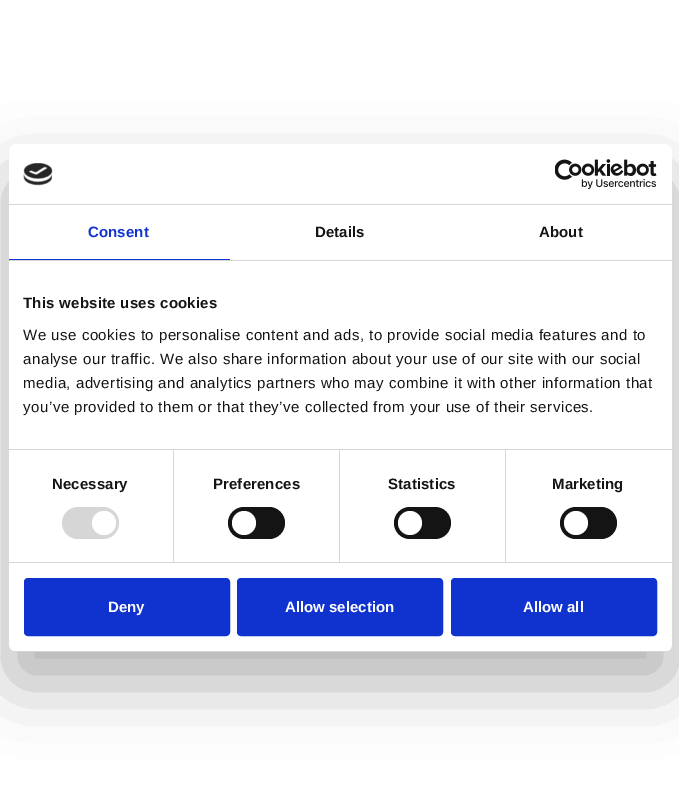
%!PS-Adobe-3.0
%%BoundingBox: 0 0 679 796
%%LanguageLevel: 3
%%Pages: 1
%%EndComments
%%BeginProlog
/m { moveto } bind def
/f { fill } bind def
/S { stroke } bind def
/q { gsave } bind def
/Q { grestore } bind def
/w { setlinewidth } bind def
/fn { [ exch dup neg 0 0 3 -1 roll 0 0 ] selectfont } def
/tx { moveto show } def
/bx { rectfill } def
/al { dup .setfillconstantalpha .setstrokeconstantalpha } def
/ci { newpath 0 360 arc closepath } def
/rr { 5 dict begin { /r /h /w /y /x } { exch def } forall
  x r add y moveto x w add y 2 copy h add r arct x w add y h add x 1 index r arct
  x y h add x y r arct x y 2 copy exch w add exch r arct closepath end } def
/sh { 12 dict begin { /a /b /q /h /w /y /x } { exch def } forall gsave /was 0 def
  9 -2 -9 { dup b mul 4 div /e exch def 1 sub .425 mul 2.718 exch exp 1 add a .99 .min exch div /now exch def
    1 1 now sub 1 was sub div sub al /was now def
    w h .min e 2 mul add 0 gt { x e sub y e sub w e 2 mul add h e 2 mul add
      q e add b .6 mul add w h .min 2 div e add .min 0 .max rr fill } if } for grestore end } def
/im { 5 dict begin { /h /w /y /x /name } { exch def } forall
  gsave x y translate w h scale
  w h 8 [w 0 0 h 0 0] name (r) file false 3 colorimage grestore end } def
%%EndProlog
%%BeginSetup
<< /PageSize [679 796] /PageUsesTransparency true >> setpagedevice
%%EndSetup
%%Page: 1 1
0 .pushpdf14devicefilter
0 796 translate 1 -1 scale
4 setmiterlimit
1 setgray
0 0 679 796 bx
0 setgray
9 176 663 508 8 34 0.3 sh
1 setgray
9 144 663 508 8 rr f
0.839 setgray
9 204 663 1 bx
(image0.raw) 23 163 30 23 im
(image1.raw) 555 159 102 30 im
9 260 663 1 bx
0.063 0.196 0.812 setrgbcolor
9 259 221 1 bx
/LiberationSans-Bold 15 fn
88 237 m 0.1 0 (Consent) ashow
0.078 setgray
315 237 m 0.1 0 (Details) ashow
539 237 m 0.1 0 (About) ashow
0.839 setgray
9 449 663 1 bx
0.078 setgray
23 308 m 0.25 0 (This website uses cookies) ashow
/LiberationSans-Regular 15 fn
23 340 m 0.5 0 (We use cookies to personalise content and ads, to provide social media features and to) ashow
23 364 m 0.5 0 (analyse our traffic. We also share information about your use of our site with our social) ashow
23 388 m 0.5 0 (media, advertising and analytics partners who may combine it with other information that) ashow
23 412 m 0.5 0 (you’ve provided to them or that they’ve collected from your use of their services.) ashow
0.839 setgray
9 562 663 1 bx
173 450 1 112 bx
/LiberationSans-Bold 15 fn
0.078 setgray
52 489 m 0.1 0 (Necessary) ashow
0.839 setgray
62 507 57 32 16 rr f
1 setgray
104 523 12 ci f
0.839 setgray
339 450 1 112 bx
0.078 setgray
213 489 m 0.1 0 (Preferences) ashow
228 507 57 32 16 rr f
1 setgray
244 523 12 ci f
0.839 setgray
505 450 1 112 bx
0.078 setgray
388 489 m 0.1 0 (Statistics) ashow
394 507 57 32 16 rr f
1 setgray
410 523 12 ci f
0.078 setgray
552 489 m 0.1 0 (Marketing) ashow
560 507 57 32 16 rr f
1 setgray
576 523 12 ci f
q
9 144 663 508 8 rr clip newpath
0.839 setgray
9 651 663 1 bx
Q
0.063 0.196 0.812 setrgbcolor
25 579 204 56 3 rr q f Q
2 w
S
1 setgray
(Deny) 108 612 tx
0.063 0.196 0.812 setrgbcolor
238 579 204 56 3 rr q f Q
S
1 setgray
(Allow selection) 285 612 tx
0.063 0.196 0.812 setrgbcolor
452 579 204 56 3 rr q f Q
S
1 setgray
(Allow all) 523 612 tx
.poppdf14devicefilter showpage
%%EOF
